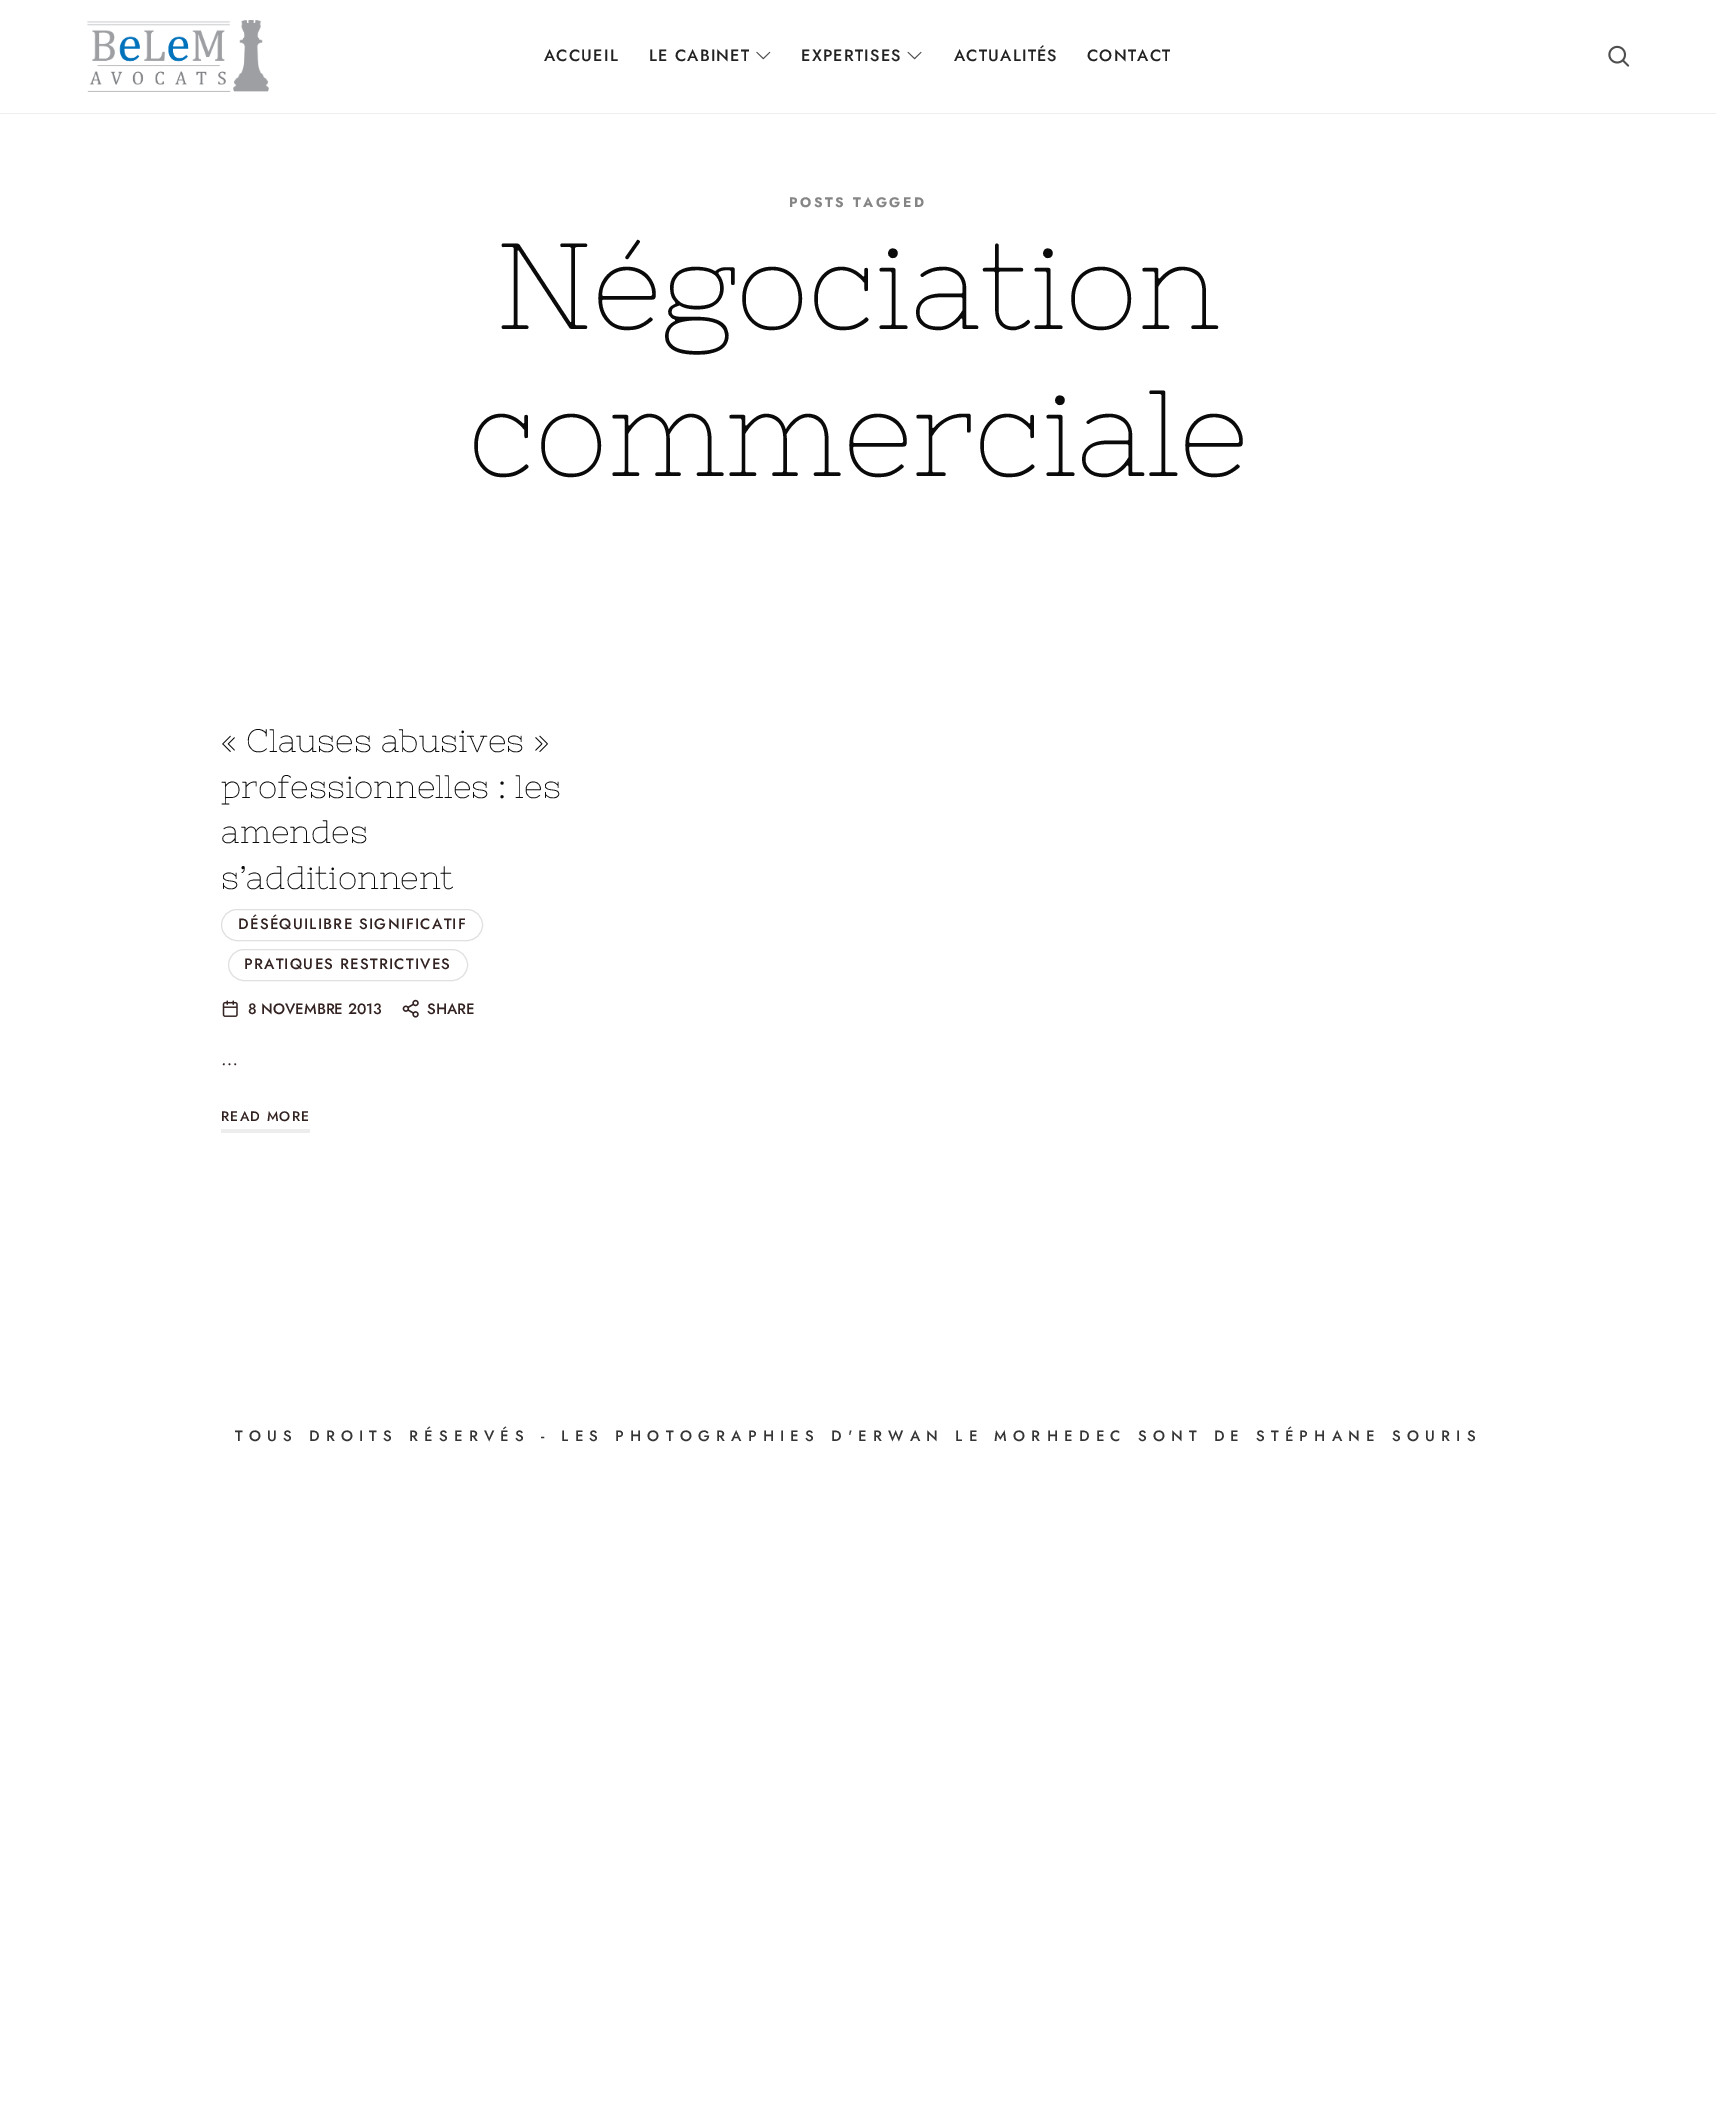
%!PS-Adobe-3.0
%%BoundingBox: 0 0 1716 2119
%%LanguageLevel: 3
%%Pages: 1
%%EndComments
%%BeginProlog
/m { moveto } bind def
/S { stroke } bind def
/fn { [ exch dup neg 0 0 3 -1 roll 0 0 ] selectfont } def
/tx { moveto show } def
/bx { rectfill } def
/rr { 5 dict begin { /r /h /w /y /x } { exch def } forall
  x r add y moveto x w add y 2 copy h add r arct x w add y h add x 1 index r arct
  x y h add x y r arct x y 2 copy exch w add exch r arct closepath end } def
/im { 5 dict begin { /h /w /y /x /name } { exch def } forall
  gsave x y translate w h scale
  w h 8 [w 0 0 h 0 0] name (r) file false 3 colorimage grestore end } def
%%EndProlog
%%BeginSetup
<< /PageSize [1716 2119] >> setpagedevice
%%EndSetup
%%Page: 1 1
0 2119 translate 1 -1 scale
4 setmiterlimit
1 setgray
0 0 1716 2119 bx
(image0.raw) 87 20 182 72 im
/Jost-Medium 16.25 fn
0.133 setgray
544 61 m 1.25 0 (ACCUEIL) ashow
649 61 m 1.25 0 (LE CABINET) ashow
(image1.raw) 756 51 15 9 im
801 61 m 1.25 0 (EXPERTISES) ashow
(image2.raw) 907 51 15 9 im
954 61 m 1.25 0 (ACTUALITÉS) ashow
1087 61 m 1.25 0 (CONTACT) ashow
(image3.raw) 1608 45 22 22 im
0.933 setgray
0 113 1716 1 bx
/Jost-Bold 13.75 fn
0.522 setgray
789 207 m 2.5 0 (POSTS TAGGED) ashow
/NixieOne-Regular 122.5 fn
0.039 setgray
(Négociation) 496 329 tx
(commerciale) 468 476 tx
/NixieOne-Regular 32.5 fn
(« Clauses abusives ») 221 752 tx
(professionnelles : les) 221 798 tx
(amendes) 221 843 tx
(s’additionnent) 221 889 tx
0.878 setgray
221.5 909.5 261 31 15.5 rr S
/Jost-Medium 15 fn
0.2 0.133 0.133 setrgbcolor
238 929 m 1.25 0 (DÉSÉQUILIBRE SIGNIFICATIF) ashow
0.878 setgray
228.5 949.5 239 31 15.5 rr S
0.2 0.133 0.133 setrgbcolor
244 969 m 1.25 0 (PRATIQUES RESTRICTIVES) ashow
(image4.raw) 222 1000 16 17 im
(8 NOVEMBRE 2013) 248 1014 tx
(image5.raw) 402 999 17 19 im
(SHARE) 427 1014 tx
/Jost-Regular 19 fn
(…) 221 1065 tx
0.929 setgray
221 1129 89 4 bx
/Jost-Medium 13.75 fn
0.2 0.133 0.133 setrgbcolor
221 1121 m 1.25 0 (READ MORE) ashow
/Jost-Medium 15 fn
0.208 setgray
235 1441 m 6.25 0 (TOUS DROITS RÉSERVÉS - LES PHOTOGRAPHIES D'ERWAN LE MORHEDEC SONT DE STÉPHANE SOURIS) ashow
showpage
%%EOF
